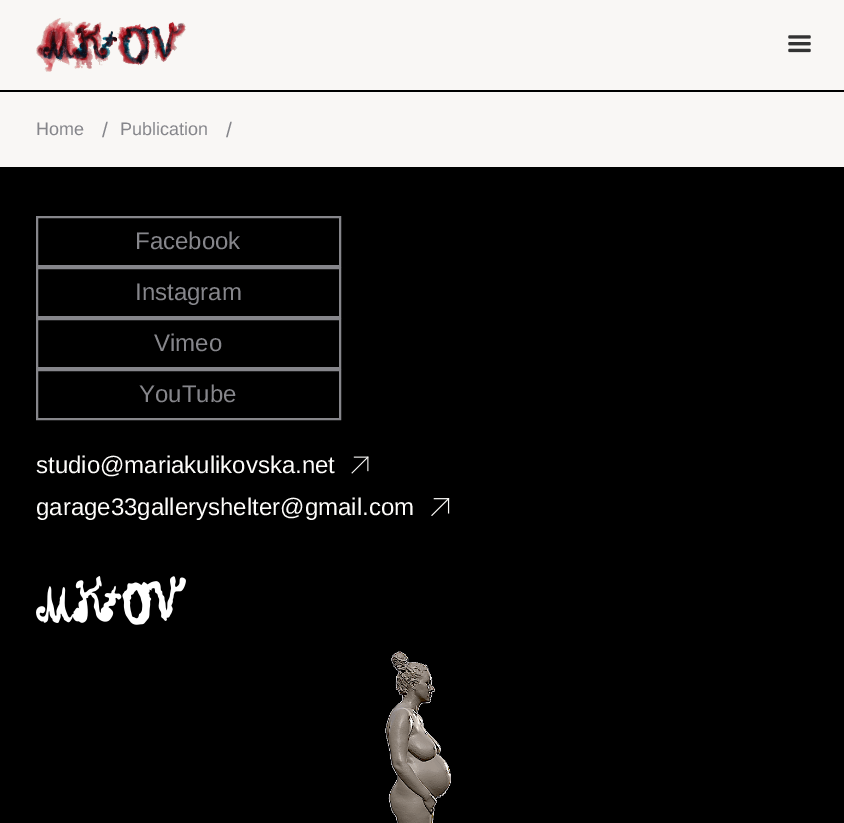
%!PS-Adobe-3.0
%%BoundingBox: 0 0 844 823
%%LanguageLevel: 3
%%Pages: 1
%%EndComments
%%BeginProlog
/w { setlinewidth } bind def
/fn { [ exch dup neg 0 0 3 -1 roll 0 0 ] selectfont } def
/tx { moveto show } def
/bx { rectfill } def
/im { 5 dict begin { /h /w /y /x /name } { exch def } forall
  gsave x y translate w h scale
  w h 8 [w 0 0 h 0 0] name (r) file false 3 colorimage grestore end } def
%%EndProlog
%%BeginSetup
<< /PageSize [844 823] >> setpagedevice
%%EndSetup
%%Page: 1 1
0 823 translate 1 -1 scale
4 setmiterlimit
0.976 0.969 0.961 setrgbcolor
0 0 844 823 bx
0 setgray
0 90 844 2 bx
(image0.raw) 36 18 150 54 im
(image1.raw) 788 35 23 18 im
/LiberationSans-Regular 18 fn
0.525 0.525 0.545 setrgbcolor
(Home) 36 135 tx
/LiberationSans-Regular 21 fn
(/) 102 137 tx
/LiberationSans-Regular 18 fn
(Publication) 120 135 tx
/LiberationSans-Regular 21 fn
(/) 226 137 tx
0 setgray
0 167 844 656 bx
0.525 0.525 0.545 setrgbcolor
2 w
37 217 303 49 rectstroke
/LiberationSans-Regular 24 fn
(Facebook) 135 249 tx
37 268 303 49 rectstroke
(Instagram) 135 300 tx
37 319 303 49 rectstroke
(Vimeo) 154 351 tx
37 370 303 49 rectstroke
(YouTube) 139 402 tx
0.992 0.988 0.98 setrgbcolor
(studio@mariakulikovska.net) 36 473 tx
(image2.raw) 351 456 18 18 im
(garage33galleryshelter@gmail.com) 36 515 tx
(image3.raw) 431 498 19 18 im
(image4.raw) 36 576 150 49 im
(image5.raw) 385 651 66 172 im
showpage
%%EOF
